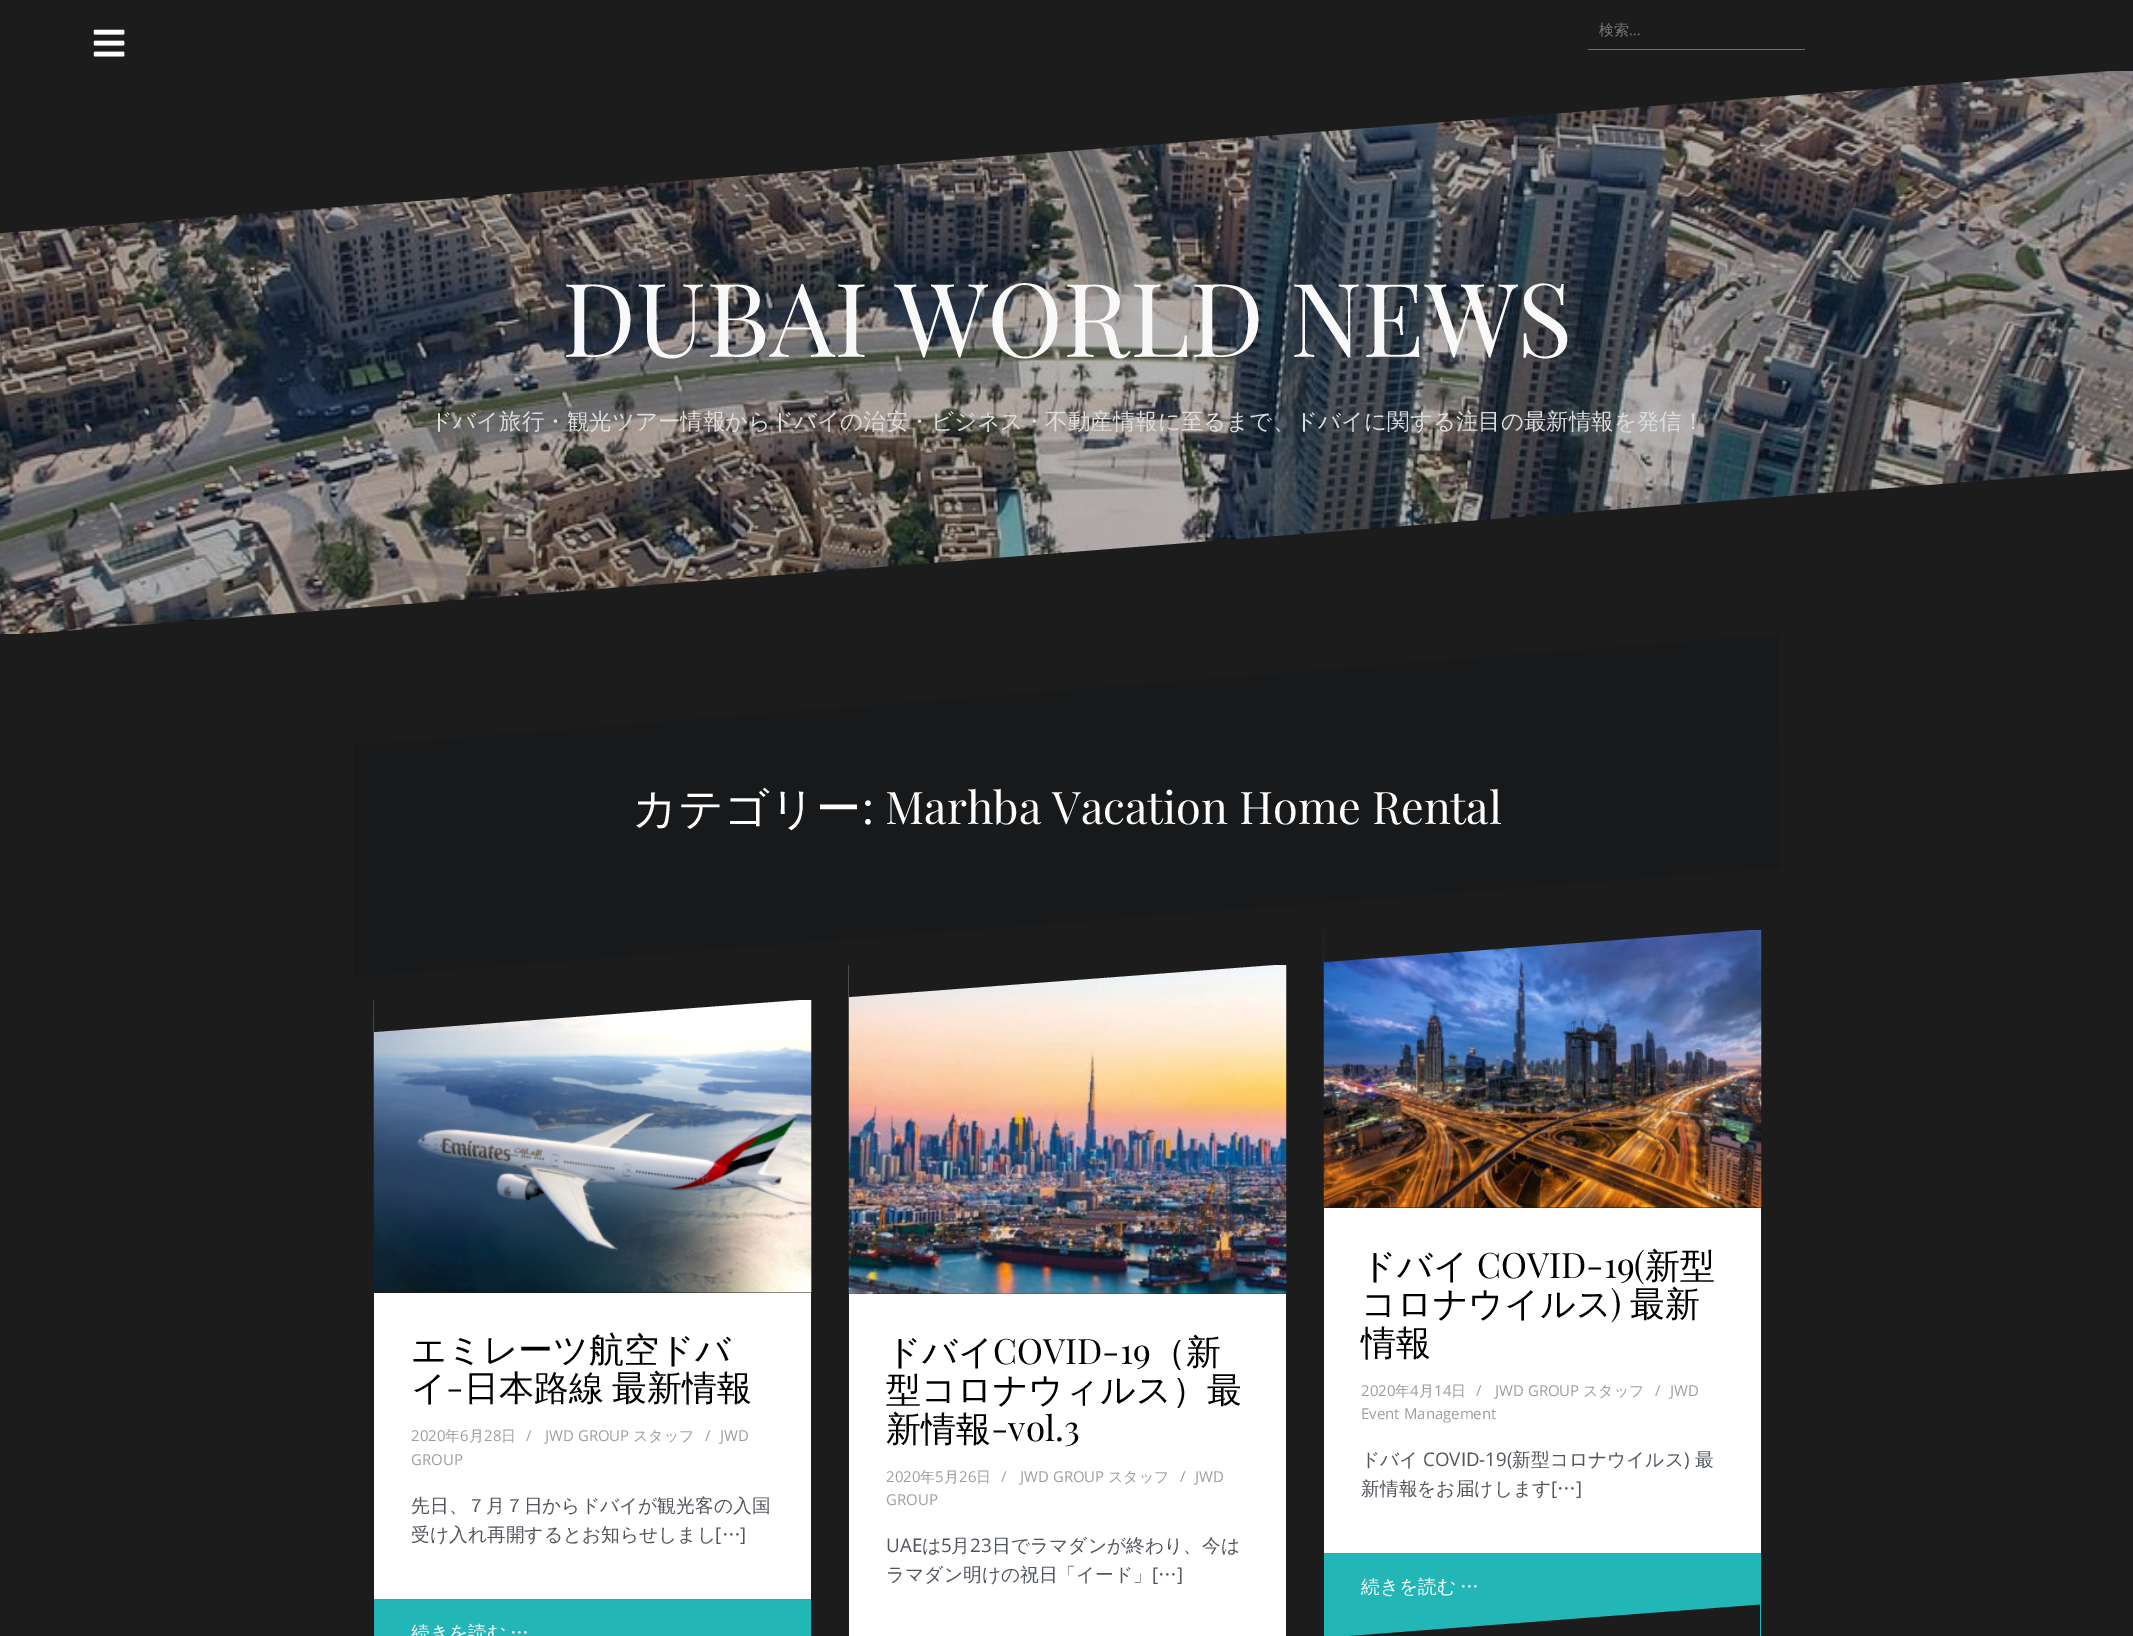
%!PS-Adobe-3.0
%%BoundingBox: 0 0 2133 1636
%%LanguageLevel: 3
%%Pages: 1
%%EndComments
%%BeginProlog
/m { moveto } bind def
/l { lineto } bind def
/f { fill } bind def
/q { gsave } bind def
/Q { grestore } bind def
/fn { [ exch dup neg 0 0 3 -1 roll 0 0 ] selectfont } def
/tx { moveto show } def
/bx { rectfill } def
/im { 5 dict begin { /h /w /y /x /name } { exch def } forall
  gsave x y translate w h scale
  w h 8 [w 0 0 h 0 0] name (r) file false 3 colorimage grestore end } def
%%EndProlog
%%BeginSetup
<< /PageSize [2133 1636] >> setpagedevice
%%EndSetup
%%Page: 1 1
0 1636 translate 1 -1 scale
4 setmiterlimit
0.11 setgray
0 0 2133 1636 bx
(image0.raw) 93 29 32 28 im
0.435 setgray
1588 49 217 1 bx
/WenQuanYiZenHei-Medium 15 fn
0.459 setgray
(検索) 1599 35 tx
/OpenSans-Regular 15 fn
(…) 1629 35 tx
(image1.raw) 0 71 2133 563 im
0.11 setgray
0 233 m 0 69 l 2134 69 l f
/PlayfairDisplay-Regular 102.5 fn
0.976 setgray
(DUBAI WORLD NEWS) 562 357 tx
/WenQuanYiZenHei-Medium 22.5 fn
0.867 setgray
(ドバイ旅行・観光ツアー情報からドバイの治安・ビジネス・不動産情報に至るまで、ドバイに関する注目の最新情報を発信！) 430 429 tx
0.09 0.098 0.106 setrgbcolor
355 744 1425 125 bx
q
355 633 1424 112 rectclip
1806 632 m 1806 746 l 355 746 l f
Q
0.11 setgray
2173 466 m 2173 636 l 0 636 l f
/WenQuanYiZenHei-Medium 45 fn
1 setgray
(カテゴリー) 632 824 tx
/PlayfairDisplay-Regular 45 fn
(: Marhba Vacation Home Rental) 862 824 tx
q
355 868 1424 108 rectclip
0.09 0.098 0.106 setrgbcolor
355 977 m 355 868 l 1780 868 l f
Q
(image2.raw) 373 1000 439 293 im
0.11 setgray
374 1032 m 374 999 l 811 999 l f
1 setgray
374 1293 437 306 bx
/WenQuanYiZenHei-Medium 35 fn
0 setgray
(エミレーツ航空ドバ) 411 1362 tx
(イ) 411 1400 tx
/PlayfairDisplay-Regular 35 fn
(-) 446 1400 tx
/WenQuanYiZenHei-Medium 35 fn
464 1400 m -2 0 32 (日本路線 最新情報) widthshow
/OpenSans-Regular 15 fn
0.616 setgray
(2020) 411 1441 tx
/WenQuanYiZenHei-Medium 15 fn
(年) 445 1441 tx
/OpenSans-Regular 15 fn
(6) 460 1441 tx
/WenQuanYiZenHei-Medium 15 fn
(月) 469 1441 tx
/OpenSans-Regular 15 fn
(28) 484 1441 tx
/WenQuanYiZenHei-Medium 15 fn
(日) 501 1441 tx
/OpenSans-Regular 15 fn
(/) 526 1441 tx
(JWD GROUP) 545 1441 tx
/WenQuanYiZenHei-Medium 15 fn
(スタッフ) 633 1441 tx
/OpenSans-Regular 15 fn
(/) 705 1441 tx
(JWD) 720 1441 tx
(GROUP) 411 1465 tx
/WenQuanYiZenHei-Medium 18.75 fn
0.314 0.329 0.361 setrgbcolor
(先日、７月７日からドバイが観光客の入国) 411 1512 tx
(受け入れ再開するとお知らせしまし) 411 1541 tx
/OpenSans-Regular 18.75 fn
([) 715 1541 tx
/WenQuanYiZenHei-Medium 18.75 fn
(…) 722 1541 tx
/OpenSans-Regular 18.75 fn
(]) 740 1541 tx
0.137 0.714 0.714 setrgbcolor
374 1599 437 37 bx
/WenQuanYiZenHei-Medium 18.75 fn
1 setgray
411 1639 m -2 0 32 (続きを読む …) widthshow
(image3.raw) 848 965 439 329 im
0.11 setgray
849 997 m 849 964 l 1286 964 l f
1 setgray
849 1294 437 342 bx
/WenQuanYiZenHei-Medium 35 fn
0 setgray
(ドバイ) 886 1364 tx
/PlayfairDisplay-Regular 35 fn
(COVID-19) 993 1364 tx
/WenQuanYiZenHei-Medium 35 fn
(（新) 1151 1364 tx
(型コロナウィルス）最) 886 1402 tx
(新情報) 886 1441 tx
/PlayfairDisplay-Regular 35 fn
(-vol.3) 991 1441 tx
/OpenSans-Regular 15 fn
0.616 setgray
(2020) 886 1482 tx
/WenQuanYiZenHei-Medium 15 fn
(年) 920 1482 tx
/OpenSans-Regular 15 fn
(5) 935 1482 tx
/WenQuanYiZenHei-Medium 15 fn
(月) 944 1482 tx
/OpenSans-Regular 15 fn
(26) 959 1482 tx
/WenQuanYiZenHei-Medium 15 fn
(日) 976 1482 tx
/OpenSans-Regular 15 fn
(/) 1001 1482 tx
(JWD GROUP) 1020 1482 tx
/WenQuanYiZenHei-Medium 15 fn
(スタッフ) 1108 1482 tx
/OpenSans-Regular 15 fn
(/) 1180 1482 tx
(JWD) 1195 1482 tx
(GROUP) 886 1505 tx
/OpenSans-Regular 18.75 fn
0.314 0.329 0.361 setrgbcolor
(UAE) 886 1552 tx
/WenQuanYiZenHei-Medium 18.75 fn
(は) 922 1552 tx
/OpenSans-Regular 18.75 fn
(5) 941 1552 tx
/WenQuanYiZenHei-Medium 18.75 fn
(月) 951 1552 tx
/OpenSans-Regular 18.75 fn
(23) 970 1552 tx
/WenQuanYiZenHei-Medium 18.75 fn
(日でラマダンが終わり、今は) 992 1552 tx
(ラマダン明けの祝日「イード」) 886 1581 tx
/OpenSans-Regular 18.75 fn
([) 1152 1581 tx
/WenQuanYiZenHei-Medium 18.75 fn
(…) 1158 1581 tx
/OpenSans-Regular 18.75 fn
(]) 1177 1581 tx
(image4.raw) 1323 930 439 278 im
0.11 setgray
1324 962 m 1324 929 l 1761 929 l f
1 setgray
1324 1208 437 345 bx
/WenQuanYiZenHei-Medium 35 fn
0 setgray
(ドバイ) 1361 1278 tx
/PlayfairDisplay-Regular 35 fn
(COVID-19\() 1477 1278 tx
/WenQuanYiZenHei-Medium 35 fn
(新型) 1645 1278 tx
(コロナウイルス) 1361 1316 tx
/PlayfairDisplay-Regular 35 fn
(\)) 1611 1316 tx
/WenQuanYiZenHei-Medium 35 fn
(最新) 1630 1316 tx
(情報) 1361 1355 tx
/OpenSans-Regular 15 fn
0.616 setgray
(2020) 1361 1396 tx
/WenQuanYiZenHei-Medium 15 fn
(年) 1395 1396 tx
/OpenSans-Regular 15 fn
(4) 1410 1396 tx
/WenQuanYiZenHei-Medium 15 fn
(月) 1419 1396 tx
/OpenSans-Regular 15 fn
(14) 1434 1396 tx
/WenQuanYiZenHei-Medium 15 fn
(日) 1451 1396 tx
/OpenSans-Regular 15 fn
(/) 1476 1396 tx
(JWD GROUP) 1495 1396 tx
/WenQuanYiZenHei-Medium 15 fn
(スタッフ) 1583 1396 tx
/OpenSans-Regular 15 fn
(/) 1655 1396 tx
(JWD) 1670 1396 tx
(Event Management) 1361 1419 tx
/WenQuanYiZenHei-Medium 18.75 fn
0.314 0.329 0.361 setrgbcolor
(ドバイ) 1361 1466 tx
/OpenSans-Regular 18.75 fn
(COVID-19\() 1423 1466 tx
/WenQuanYiZenHei-Medium 18.75 fn
(新型コロナウイルス) 1512 1466 tx
/OpenSans-Regular 18.75 fn
(\)) 1684 1466 tx
/WenQuanYiZenHei-Medium 18.75 fn
(最) 1695 1466 tx
(新情報をお届けします) 1361 1495 tx
/OpenSans-Regular 18.75 fn
([) 1551 1495 tx
/WenQuanYiZenHei-Medium 18.75 fn
(…) 1557 1495 tx
/OpenSans-Regular 18.75 fn
(]) 1576 1495 tx
0.137 0.714 0.714 setrgbcolor
1324 1553 437 83 bx
/WenQuanYiZenHei-Medium 18.75 fn
1 setgray
1361 1593 m -2 0 32 (続きを読む …) widthshow
q
1324 1604 436 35 rectclip
0.11 setgray
1769 1604 m 1769 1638 l 1324 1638 l f
Q
showpage
%%EOF
